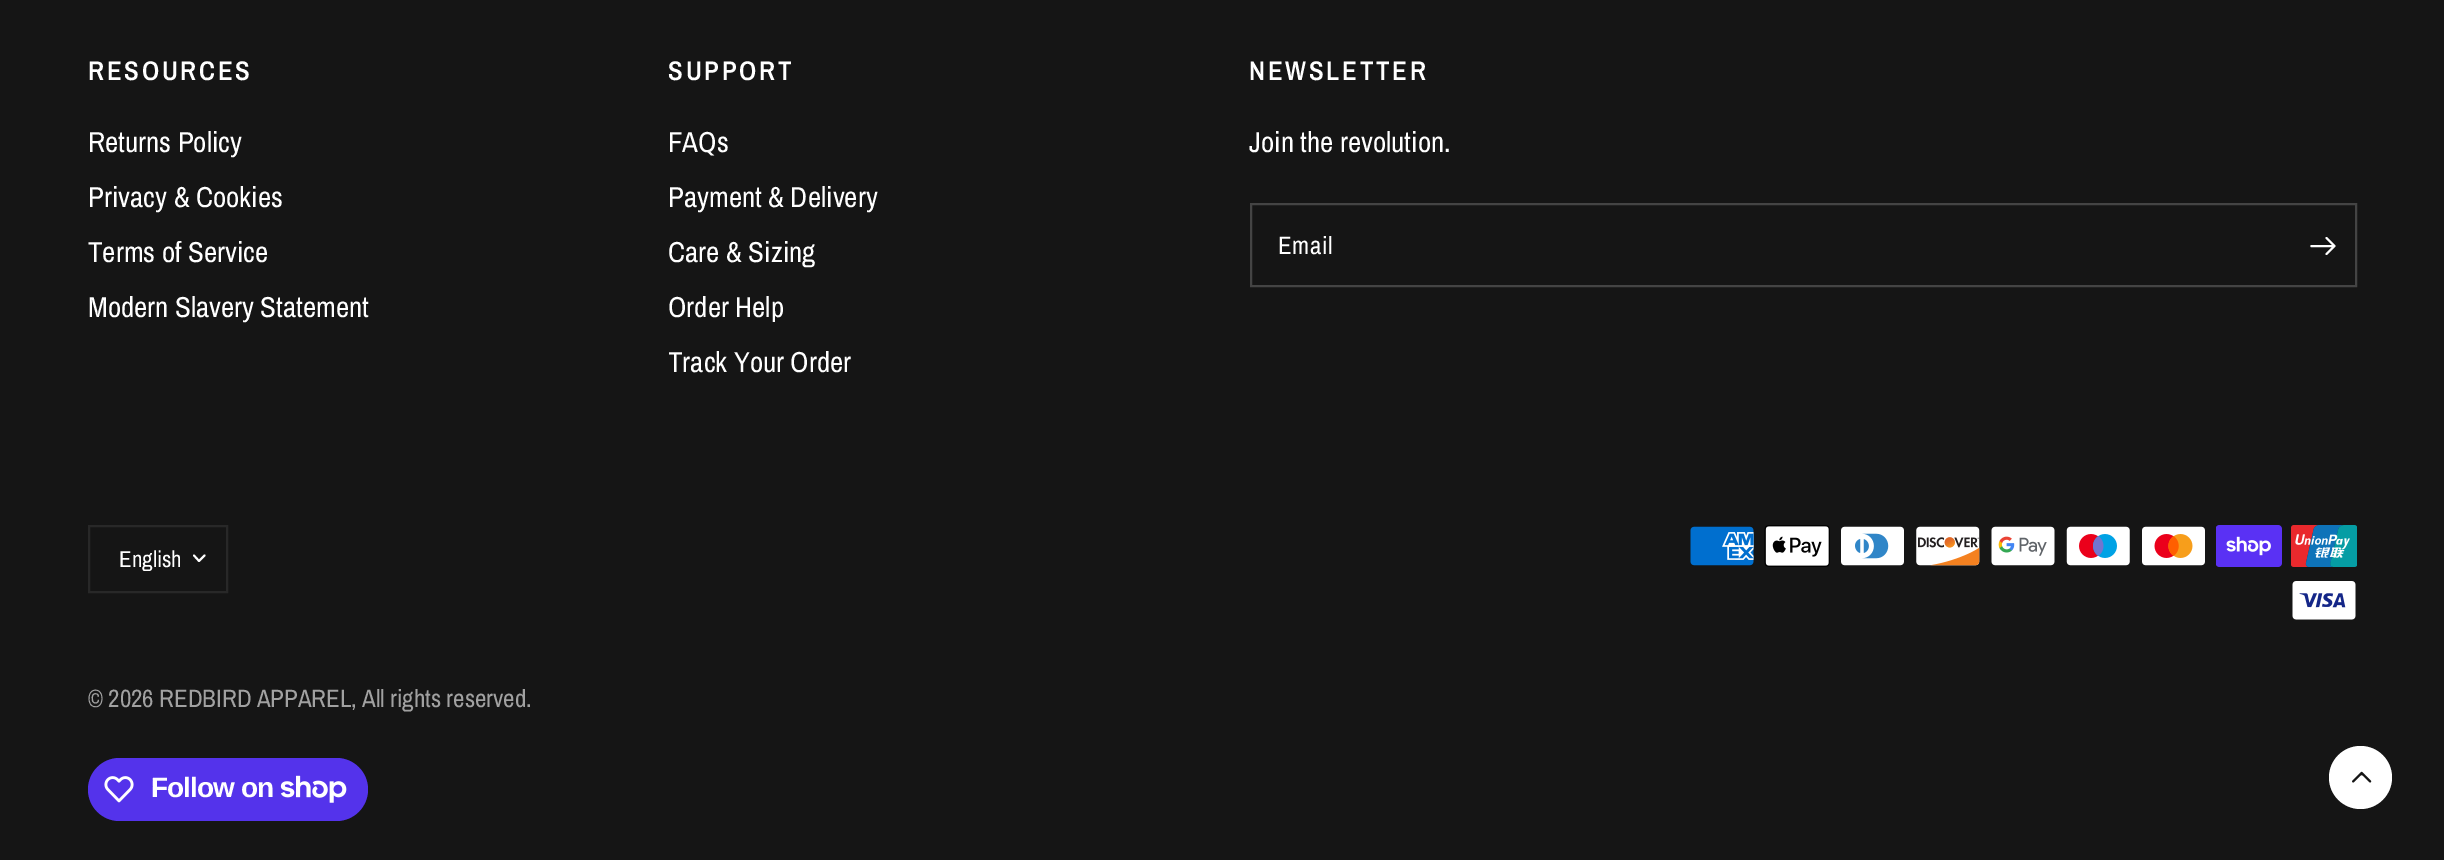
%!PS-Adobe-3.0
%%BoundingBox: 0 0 2444 860
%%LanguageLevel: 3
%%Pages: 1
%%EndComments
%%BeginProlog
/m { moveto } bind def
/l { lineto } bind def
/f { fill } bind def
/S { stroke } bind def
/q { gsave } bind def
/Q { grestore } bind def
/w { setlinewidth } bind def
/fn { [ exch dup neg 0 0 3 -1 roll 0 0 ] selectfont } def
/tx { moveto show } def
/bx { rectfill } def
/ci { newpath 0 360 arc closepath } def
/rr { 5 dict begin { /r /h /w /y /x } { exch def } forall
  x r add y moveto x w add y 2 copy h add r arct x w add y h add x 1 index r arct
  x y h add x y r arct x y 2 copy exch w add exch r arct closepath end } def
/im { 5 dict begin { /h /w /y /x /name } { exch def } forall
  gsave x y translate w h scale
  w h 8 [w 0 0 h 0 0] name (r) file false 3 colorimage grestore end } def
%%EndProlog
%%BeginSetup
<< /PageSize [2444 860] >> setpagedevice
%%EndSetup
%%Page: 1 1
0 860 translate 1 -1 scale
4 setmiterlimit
0.082 setgray
0 0 2444 860 bx
/ArchivoNarrow-SemiBold 27 fn
1 setgray
88 80 m 2.75 0 (RESOURCES) ashow
/ArchivoNarrow-Regular 28.9 fn
(Returns Policy) 88 152 tx
(Privacy & Cookies) 88 207 tx
(Terms of Service) 88 262 tx
(Modern Slavery Statement) 88 317 tx
/ArchivoNarrow-SemiBold 27 fn
668 80 m 2.75 0 (SUPPORT) ashow
/ArchivoNarrow-Regular 28.9 fn
(FAQs) 668 152 tx
(Payment & Delivery) 668 207 tx
(Care & Sizing) 668 262 tx
(Order Help) 668 317 tx
q
669 119 528 266 rectclip
(Track Your Order) 668 372 tx
Q
/ArchivoNarrow-SemiBold 27 fn
1249 80 m 2.75 0 (NEWSLETTER) ashow
/ArchivoNarrow-Regular 28.9 fn
(Join the revolution.) 1249 152 tx
0.267 setgray
2 w
1251 204 1105 82 rectstroke
/ArchivoNarrow-Regular 25 fn
1 setgray
1278 254 m 0.5 0 (Email) ashow
2.1 w
1 setlinecap
1 setlinejoin
2311.5 246 m 2332.5 246 l 2326.5 238 m 2334.5 246 l 2326.5 254 l S
0.157 setgray
2 w
0 setlinecap
0 setlinejoin
89 526 138 66 rectstroke
q
119 548 65 23 rectclip
/ArchivoNarrow-Regular 23 fn
1 setgray
(English) 119 567 tx
Q
1 setgray
1.9 w
1 setlinecap
1 setlinejoin
204.5 555.5 m 199 561 l 194 555.5 l S
(image0.raw) 1690 526 64 40 im
(image1.raw) 1764 525 66 42 im
(image2.raw) 1841 526 63 40 im
(image3.raw) 1916 526 64 40 im
(image4.raw) 1991 526 64 40 im
(image5.raw) 2066 526 64 40 im
(image6.raw) 2142 526 63 40 im
(image7.raw) 2216 525 66 42 im
(image8.raw) 2291 525 66 42 im
(image9.raw) 2292 581 64 39 im
0.631 setgray
88 707 m -0.5 0 32 (© 2026 REDBIRD APPAREL, All rights reserved.) widthshow
0.329 0.2 0.922 setrgbcolor
88 758 280 63 31.5 rr f
(image10.raw) 104 776 30 27 im
/LiberationSans-Bold 28 fn
1 setgray
151 797 m -0.9 0 (Follow on) ashow
(image11.raw) 280 775 67 28 im
2360.5 777.5 31.5 ci f
(image12.raw) 2352 771 20 12 im
showpage
%%EOF
